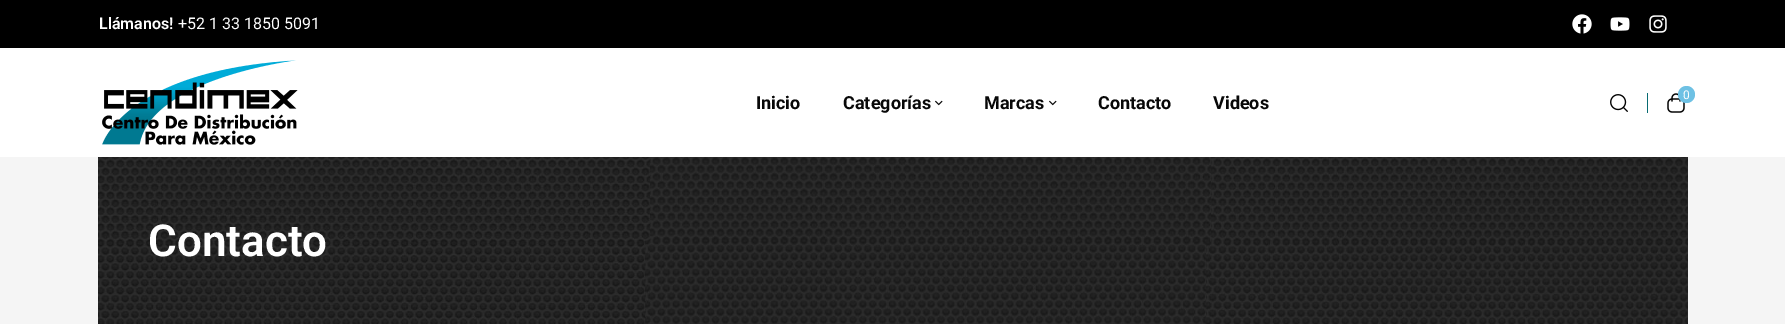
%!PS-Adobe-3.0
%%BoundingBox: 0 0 1785 324
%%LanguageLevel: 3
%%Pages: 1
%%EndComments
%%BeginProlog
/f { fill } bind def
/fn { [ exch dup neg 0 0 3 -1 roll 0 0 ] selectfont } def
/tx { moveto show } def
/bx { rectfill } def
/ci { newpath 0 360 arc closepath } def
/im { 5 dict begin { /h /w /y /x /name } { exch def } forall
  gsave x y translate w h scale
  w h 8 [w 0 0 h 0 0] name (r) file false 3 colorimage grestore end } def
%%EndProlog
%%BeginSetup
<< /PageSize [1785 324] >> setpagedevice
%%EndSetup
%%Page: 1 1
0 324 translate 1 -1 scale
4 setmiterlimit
0.961 setgray
0 0 1785 324 bx
0 setgray
0 0 1785 48 bx
/Roboto-SemiBold 16 fn
1 setgray
(Llámanos!) 99 29 tx
/Roboto-Regular 16 fn
(+52 1 33 1850 5091) 178 29 tx
(image0.raw) 1572 14 20 20 im
(image1.raw) 1610 17 20 14 im
(image2.raw) 1649 15 18 18 im
0 48 1785 109 bx
(image3.raw) 102 60 196 85 im
/Roboto-Bold 18 fn
0.031 setgray
(Inicio) 756 109 tx
(Categorías) 843 109 tx
(image4.raw) 935 100 8 6 im
(Marcas) 984 109 tx
(image4.raw) 1049 100 8 6 im
(Contacto) 1098 109 tx
(Videos) 1213 109 tx
(image5.raw) 1610 94 18 18 im
0.031 0.42 0.447 setrgbcolor
1647 93 1 20 bx
(image6.raw) 1667 93 18 20 im
0.431 0.757 0.894 setrgbcolor
1686.5 94.5 8.5 ci f
/Roboto-Regular 12 fn
1 setgray
(0) 1683 99 tx
(image7.raw) 98 157 1590 167 im
/Roboto-SemiBold 44 fn
(Contacto) 148 256 tx
showpage
%%EOF
